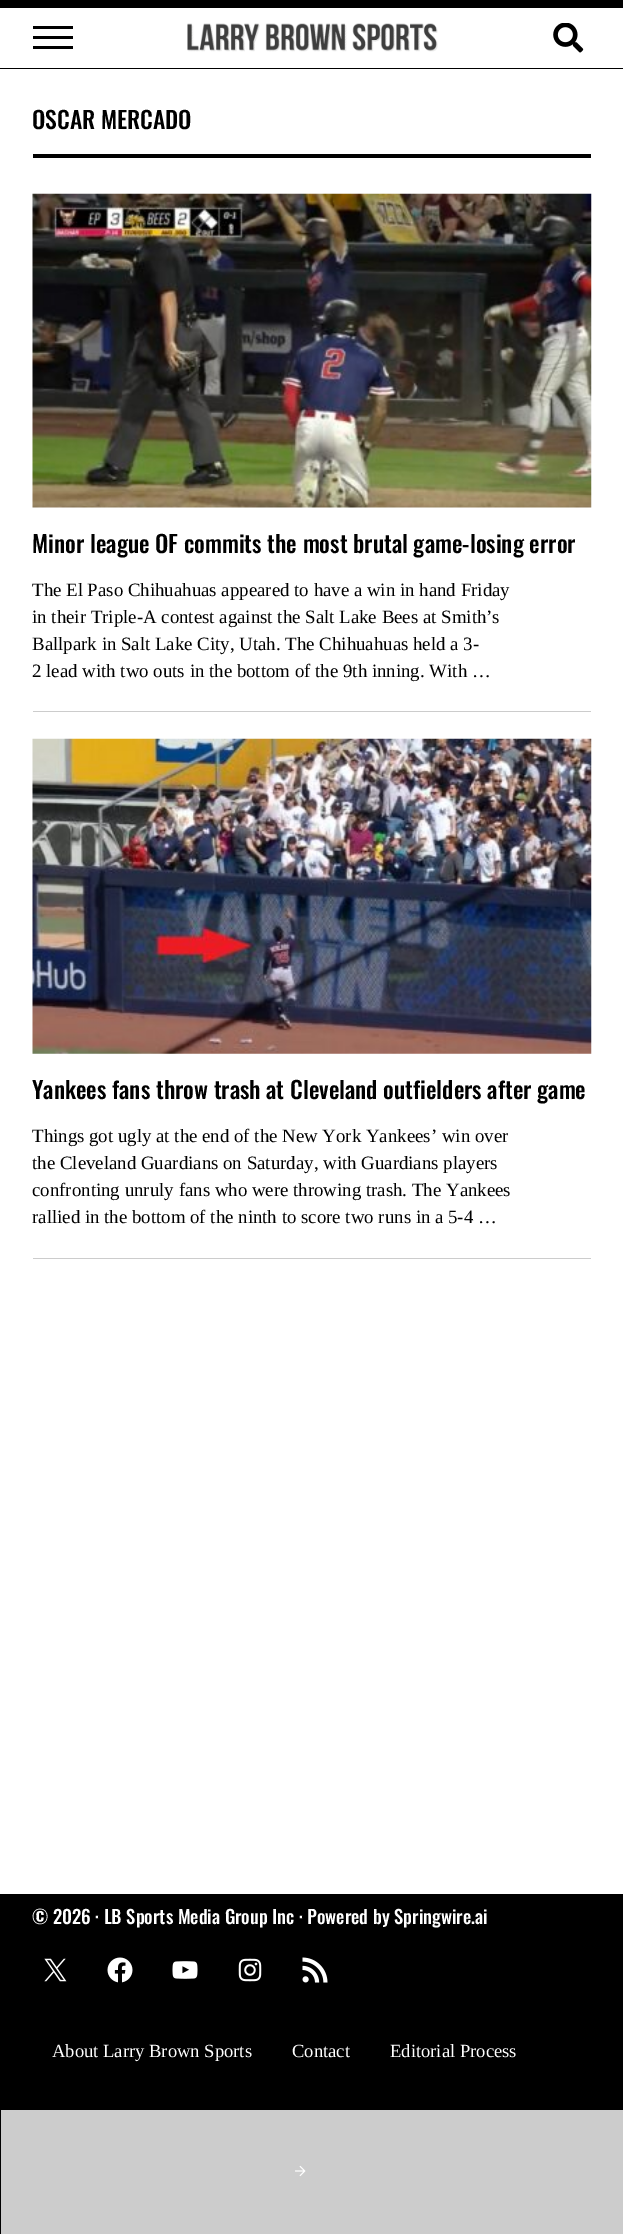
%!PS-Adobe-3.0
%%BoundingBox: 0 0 623 2234
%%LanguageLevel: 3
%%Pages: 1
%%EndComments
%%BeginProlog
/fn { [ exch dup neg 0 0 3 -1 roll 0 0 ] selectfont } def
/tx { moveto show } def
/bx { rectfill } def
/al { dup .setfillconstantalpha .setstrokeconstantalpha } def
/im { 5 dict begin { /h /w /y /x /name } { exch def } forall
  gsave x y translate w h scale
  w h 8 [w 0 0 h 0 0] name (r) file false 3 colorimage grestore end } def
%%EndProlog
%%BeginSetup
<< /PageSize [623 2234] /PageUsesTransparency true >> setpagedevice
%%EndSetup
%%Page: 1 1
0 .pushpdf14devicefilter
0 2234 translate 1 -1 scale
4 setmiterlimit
1 setgray
0 0 623 2234 bx
0 setgray
0 0 623 8 bx
0 68 623 1 bx
33 36 40 3 bx
33 26 40 3 bx
33 46 40 3 bx
(image0.raw) 187 23 251 29 im
(image1.raw) 553 23 31 30 im
33 154 558 4 bx
/Oswald-Medium 23.55 fn
(OSCAR MERCADO) 32 129 tx
0.8 setgray
33 711 558 1 bx
(image2.raw) 32 193 560 315 im
0 setgray
(Minor league OF commits the most brutal game-losing error) 32 553 tx
/Tinos-Regular 18.85 fn
(The El Paso Chihuahuas appeared to have a win in hand Friday) 32 596 tx
(in their Triple-A contest against the Salt Lake Bees at Smith’s) 32 623 tx
(Ballpark in Salt Lake City, Utah. The Chihuahuas held a 3-) 32 650 tx
(2 lead with two outs in the bottom of the 9th inning. With …) 32 677 tx
0.8 setgray
33 1258 558 1 bx
(image3.raw) 32 738 560 316 im
/Oswald-Medium 23.55 fn
0 setgray
(Yankees fans throw trash at Cleveland outfielders after game) 32 1099 tx
/Tinos-Regular 18.85 fn
(Things got ugly at the end of the New York Yankees’ win over) 32 1142 tx
(the Cleveland Guardians on Saturday, with Guardians players) 32 1169 tx
(confronting unruly fans who were throwing trash. The Yankees) 32 1196 tx
(rallied in the bottom of the ninth to score two runs in a 5-4 …) 32 1223 tx
0 1894 623 340 bx
/Oswald-Medium 18.6 fn
1 setgray
(© 2026 · LB Sports Media Group Inc · Powered by Springwire.ai) 32 1924 tx
(image4.raw) 44 1958 23 24 im
(image5.raw) 107 1957 26 26 im
(image6.raw) 172 1961 26 18 im
(image7.raw) 238 1958 24 24 im
(image8.raw) 302 1957 26 26 im
/Tinos-Regular 18.6 fn
(About Larry Brown Sports) 52 2057 tx
(Contact) 292 2057 tx
(Editorial Process) 390 2057 tx
(image9.raw) 295 2165 11 12 im
0.8 al
1 2110 622 124 bx
.poppdf14devicefilter showpage
%%EOF
